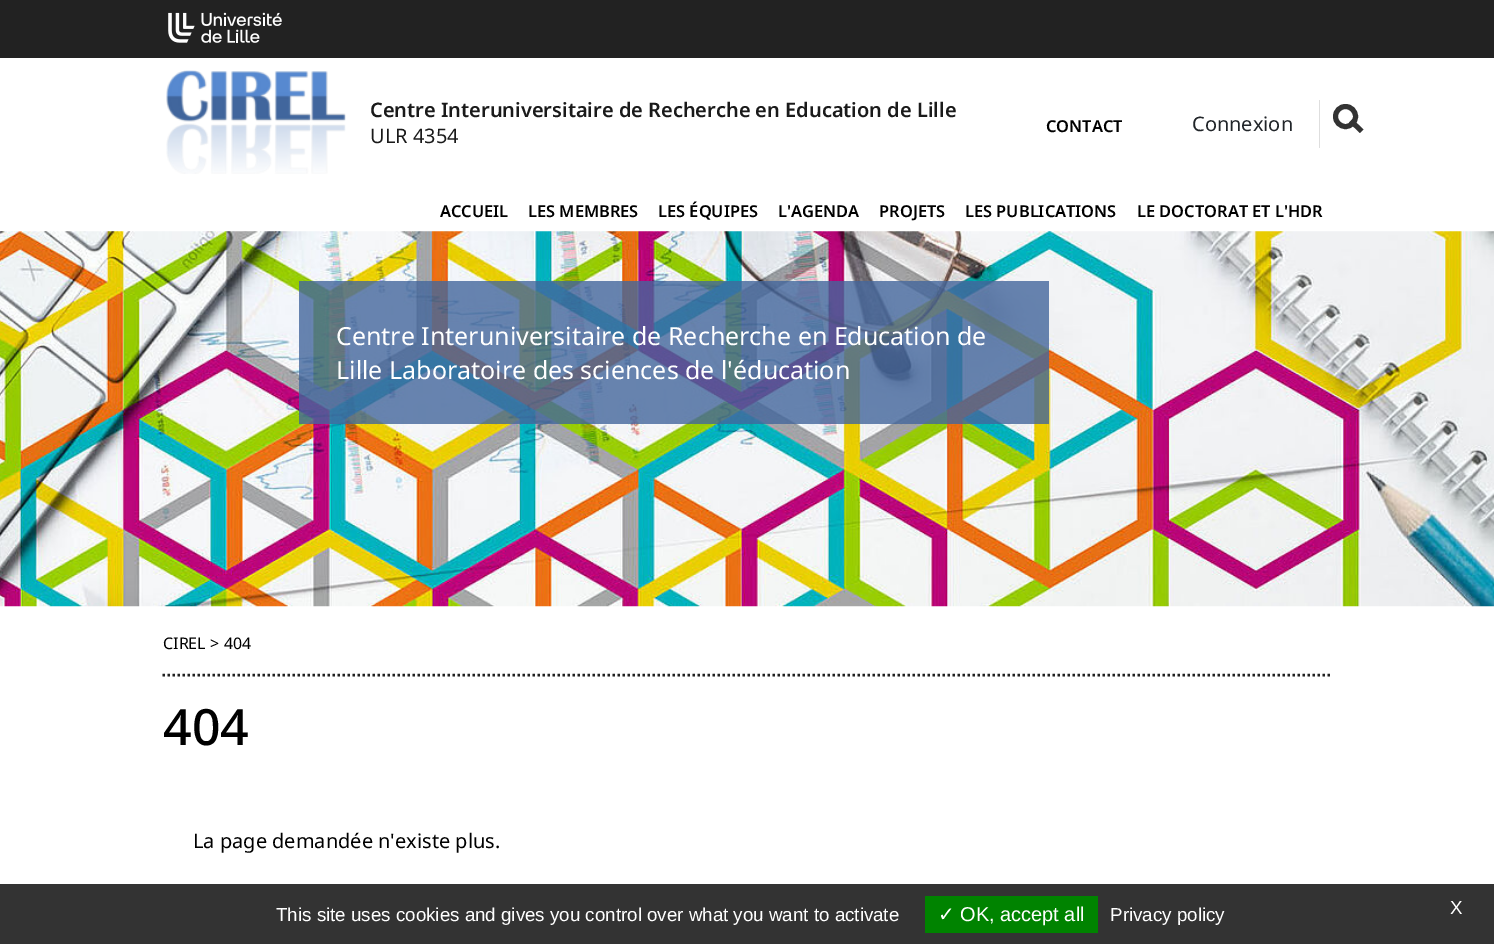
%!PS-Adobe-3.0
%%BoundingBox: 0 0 1494 944
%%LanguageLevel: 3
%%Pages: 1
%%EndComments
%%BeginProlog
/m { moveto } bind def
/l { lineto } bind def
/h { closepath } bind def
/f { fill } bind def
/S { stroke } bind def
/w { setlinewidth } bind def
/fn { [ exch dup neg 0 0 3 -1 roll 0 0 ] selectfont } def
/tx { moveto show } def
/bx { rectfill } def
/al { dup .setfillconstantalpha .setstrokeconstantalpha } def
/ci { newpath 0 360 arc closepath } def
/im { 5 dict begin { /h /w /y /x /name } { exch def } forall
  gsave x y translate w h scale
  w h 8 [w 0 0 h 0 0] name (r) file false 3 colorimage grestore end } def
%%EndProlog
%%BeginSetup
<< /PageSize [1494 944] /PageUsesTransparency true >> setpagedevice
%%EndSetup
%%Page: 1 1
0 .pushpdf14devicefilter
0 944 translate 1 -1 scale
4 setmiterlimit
1 setgray
0 0 1494 944 bx
0.133 setgray
0 0 1494 58 bx
(image0.raw) 168 12 114 31 im
(image1.raw) 166 70 180 104 im
/NotoSans-SemiBold 20 fn
0.102 setgray
(Centre Interuniversitaire de Recherche en Education de Lille) 370 117 tx
/NotoSans-Regular 20 fn
(ULR 4354) 370 143 tx
/NotoSans-SemiBold 16.4 fn
0 setgray
(CONTACT) 1046 132 tx
/NotoSans-Regular 20 fn
0.129 0.145 0.161 setrgbcolor
(Connexion) 1192 131 tx
0.871 setgray
1319 100 1 48 bx
0.2 setgray
5 w
1345.5 116.5 10 ci S
1352.5 119 m 1363.5 129.5 l 1360 133 l 1349 122.5 l h f
/NotoSans-SemiBold 16.4 fn
0 setgray
(ACCUEIL) 440 217 tx
(LES MEMBRES) 528 217 tx
(LES ÉQUIPES) 658 217 tx
(L'AGENDA) 778 217 tx
(PROJETS) 879 217 tx
(LES PUBLICATIONS) 965 217 tx
(LE DOCTORAT ET L'HDR) 1137 217 tx
(image2.raw) 0 231 1494 376 im
0.8 al
0.263 0.4 0.612 setrgbcolor
299 281 750 143 bx
/NotoSans-Regular 25 fn
1 al
1 setgray
(Centre Interuniversitaire de Recherche en Education de) 336 345 tx
(Lille Laboratoire des sciences de l'éducation) 336 379 tx
/NotoSans-Regular 16 fn
0 setgray
(CIREL) 163 649 tx
(>) 210 649 tx
(404) 224 649 tx
0.133 setgray
2.5 w
[2.5 2.5] 0 setdash
162.5 675 m 1332.5 675 l S
/NotoSans-Medium 50 fn
0 setgray
(404) 163 745 tx
/NotoSans-Regular 20 fn
(La page demandée n'existe plus.) 193 848 tx
0.2 setgray
0 884 1494 60 bx
/LiberationSans-Regular 18.75 fn
1 setgray
(This site uses cookies and gives you control over what you want to activate) 276 921 tx
0 0.514 0 setrgbcolor
925 896 173 37 bx
/DejaVuSans-Regular 20 fn
1 setgray
(✓) 938 921 tx
/LiberationSans-Regular 20 fn
(OK, accept all) 960 921 tx
/LiberationSans-Regular 18.75 fn
(Privacy policy) 1110 921 tx
(X) 1450 914 tx
.poppdf14devicefilter showpage
%%EOF
